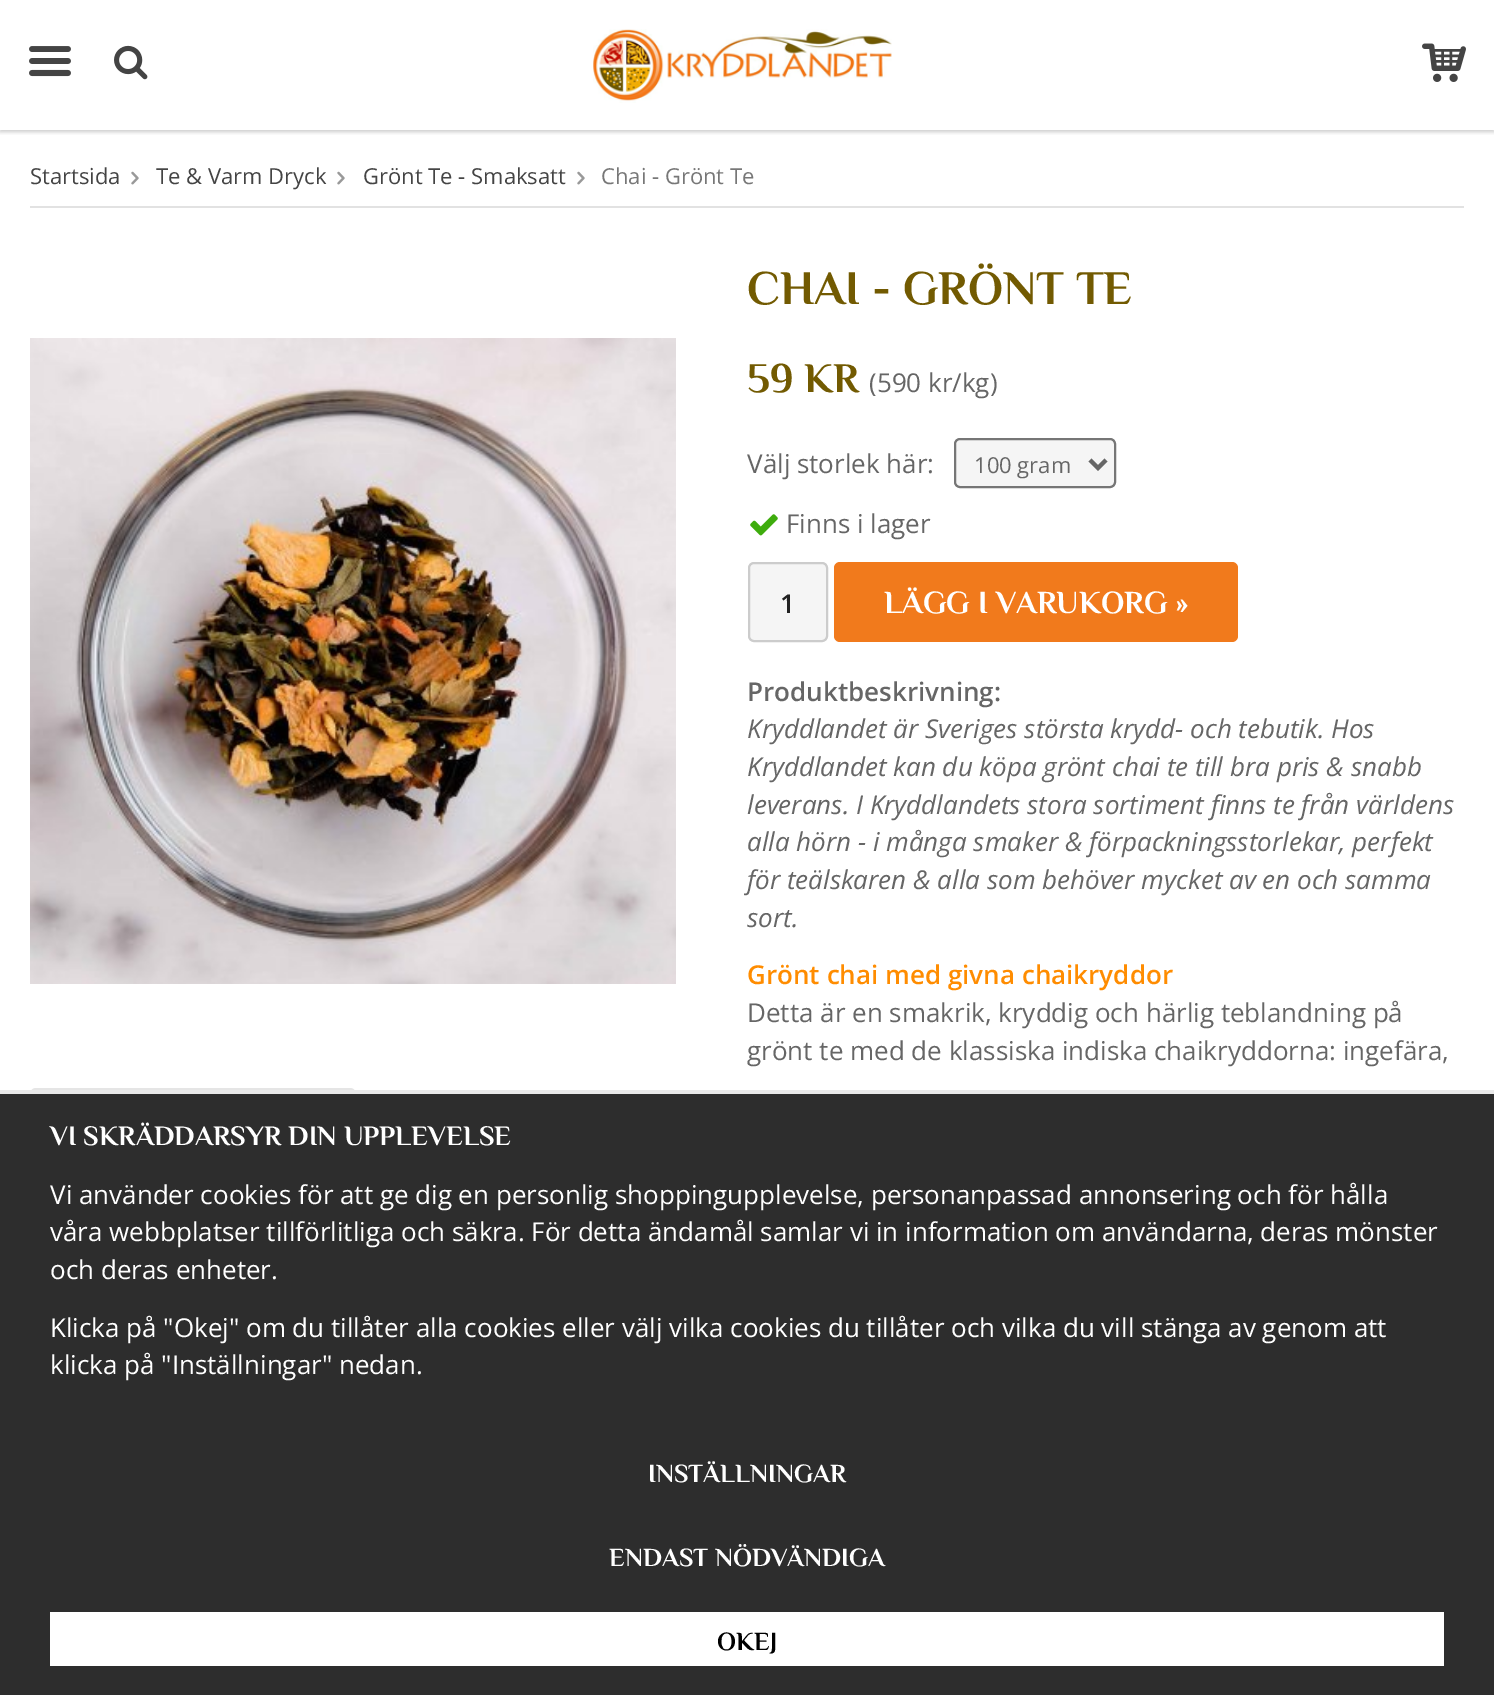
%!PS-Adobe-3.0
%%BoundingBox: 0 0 1494 1695
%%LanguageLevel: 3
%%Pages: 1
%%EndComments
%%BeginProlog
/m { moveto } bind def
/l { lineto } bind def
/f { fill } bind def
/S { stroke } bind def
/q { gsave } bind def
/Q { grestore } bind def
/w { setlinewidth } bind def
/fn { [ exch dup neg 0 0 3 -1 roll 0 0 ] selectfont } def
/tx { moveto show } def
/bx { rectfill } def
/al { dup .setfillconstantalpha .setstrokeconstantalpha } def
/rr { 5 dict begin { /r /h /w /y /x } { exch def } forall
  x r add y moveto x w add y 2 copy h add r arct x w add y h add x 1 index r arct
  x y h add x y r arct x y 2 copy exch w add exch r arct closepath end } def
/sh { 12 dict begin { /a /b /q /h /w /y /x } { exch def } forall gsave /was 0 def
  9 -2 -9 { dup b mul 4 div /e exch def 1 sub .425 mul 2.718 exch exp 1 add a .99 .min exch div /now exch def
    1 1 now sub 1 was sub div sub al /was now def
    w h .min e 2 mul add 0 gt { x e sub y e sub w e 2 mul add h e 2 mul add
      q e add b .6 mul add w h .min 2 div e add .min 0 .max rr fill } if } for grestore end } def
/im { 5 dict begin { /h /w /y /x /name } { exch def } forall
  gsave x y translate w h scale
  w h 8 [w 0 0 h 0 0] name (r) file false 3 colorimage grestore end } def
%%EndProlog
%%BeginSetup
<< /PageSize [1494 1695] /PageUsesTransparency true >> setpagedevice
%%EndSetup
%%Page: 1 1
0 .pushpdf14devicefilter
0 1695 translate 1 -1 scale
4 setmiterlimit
1 setgray
0 0 1494 1695 bx
q
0 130 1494 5 rectclip
0 setgray
0 2 1494 130 0 2 0.2 sh
Q
(image0.raw) 29 46 42 31 im
(image1.raw) 114 45 34 35 im
(image2.raw) 593 29 299 74 im
(image3.raw) 1422 43 44 39 im
0.886 setgray
30 206 1434 2 bx
/OpenSans-Regular 22 fn
0.267 setgray
(Startsida) 30 184 tx
(image4.raw) 131 171 8 14 im
(Te & Varm Dryck) 156 184 tx
(image4.raw) 337 171 8 14 im
(Grönt Te - Smaksatt) 363 184 tx
(image4.raw) 577 171 8 14 im
0.467 setgray
(Chai - Grönt Te) 601 184 tx
(image5.raw) 30 338 646 646 im
/Philosopher-Bold 48 fn
0.447 0.353 0.004 setrgbcolor
(CHAI - GRÖNT TE) 747 304 tx
/Philosopher-Bold 42 fn
(59 KR) 747 392 tx
/OpenSans-Regular 26 fn
0.4 setgray
(\(590 kr/kg\)) 869 392 tx
(Välj storlek här:) 747 473 tx
0.961 setgray
955 439 160 48 5 rr q f Q
0.463 setgray
2 w
S
0.4 setgray
4 w
1090 460 m 1098 468 l 1106 460 l S
/OpenSans-Regular 22 fn
(100 gram) 974 473 tx
(image6.raw) 750 514 28 22 im
/OpenSans-Regular 26 fn
(Finns i lager) 786 533 tx
0.961 setgray
749 563 78 78 5 rr q f Q
0.8 setgray
2 w
S
/OpenSans-SemiBold 26 fn
0.133 setgray
(1) 780 613 tx
0.945 0.478 0.11 setrgbcolor
834 562 404 80 6 rr f
/Philosopher-Bold 32 fn
1 setgray
(LÄGG I VARUKORG ») 884 613 tx
/OpenSans-SemiBold 26 fn
0.4 setgray
(Produktbeskrivning:) 747 701 tx
/OpenSans-Italic 26 fn
(Kryddlandet är Sveriges största krydd- och tebutik. Hos) 747 738 tx
(Kryddlandet kan du köpa grönt chai te till bra pris & snabb) 747 776 tx
(leverans. I Kryddlandets stora sortiment finns te från världens) 747 814 tx
(alla hörn - i många smaker & förpackningsstorlekar, perfekt) 747 851 tx
(för teälskaren & alla som behöver mycket av en och samma) 747 889 tx
(sort.) 747 927 tx
/OpenSans-SemiBold 26 fn
1 0.549 0 setrgbcolor
(Grönt chai med givna chaikryddor) 747 984 tx
/OpenSans-Regular 26 fn
0.4 setgray
(Detta är en smakrik, kryddig och härlig teblandning på) 747 1022 tx
(grönt te med de klassiska indiska chaikryddorna: ingefära,) 747 1060 tx
0.898 setgray
30 1088 326 54 6 rr f
0.176 setgray
0 1094 1494 601 bx
0.914 setgray
0 1090 1494 4 bx
/Philosopher-Bold 28 fn
1 setgray
(VI SKRÄDDARSYR DIN UPPLEVELSE) 50 1145 tx
/OpenSans-Regular 26 fn
(Vi använder cookies för att ge dig en personlig shoppingupplevelse, personanpassad annonsering och för hålla) 50 1204 tx
(våra webbplatser tillförlitliga och säkra. För detta ändamål samlar vi in information om användarna, deras mönster) 50 1241 tx
(och deras enheter.) 50 1279 tx
(Klicka på "Okej" om du tillåter alla cookies eller välj vilka cookies du tillåter och vilka du vill stänga av genom att) 50 1337 tx
(klicka på "Inställningar" nedan.) 50 1374 tx
/Philosopher-Bold 26 fn
(INSTÄLLNINGAR) 648 1482 tx
(ENDAST NÖDVÄNDIGA) 609 1566 tx
50 1612 1394 54 bx
0 setgray
(OKEJ) 717 1650 tx
.poppdf14devicefilter showpage
%%EOF
